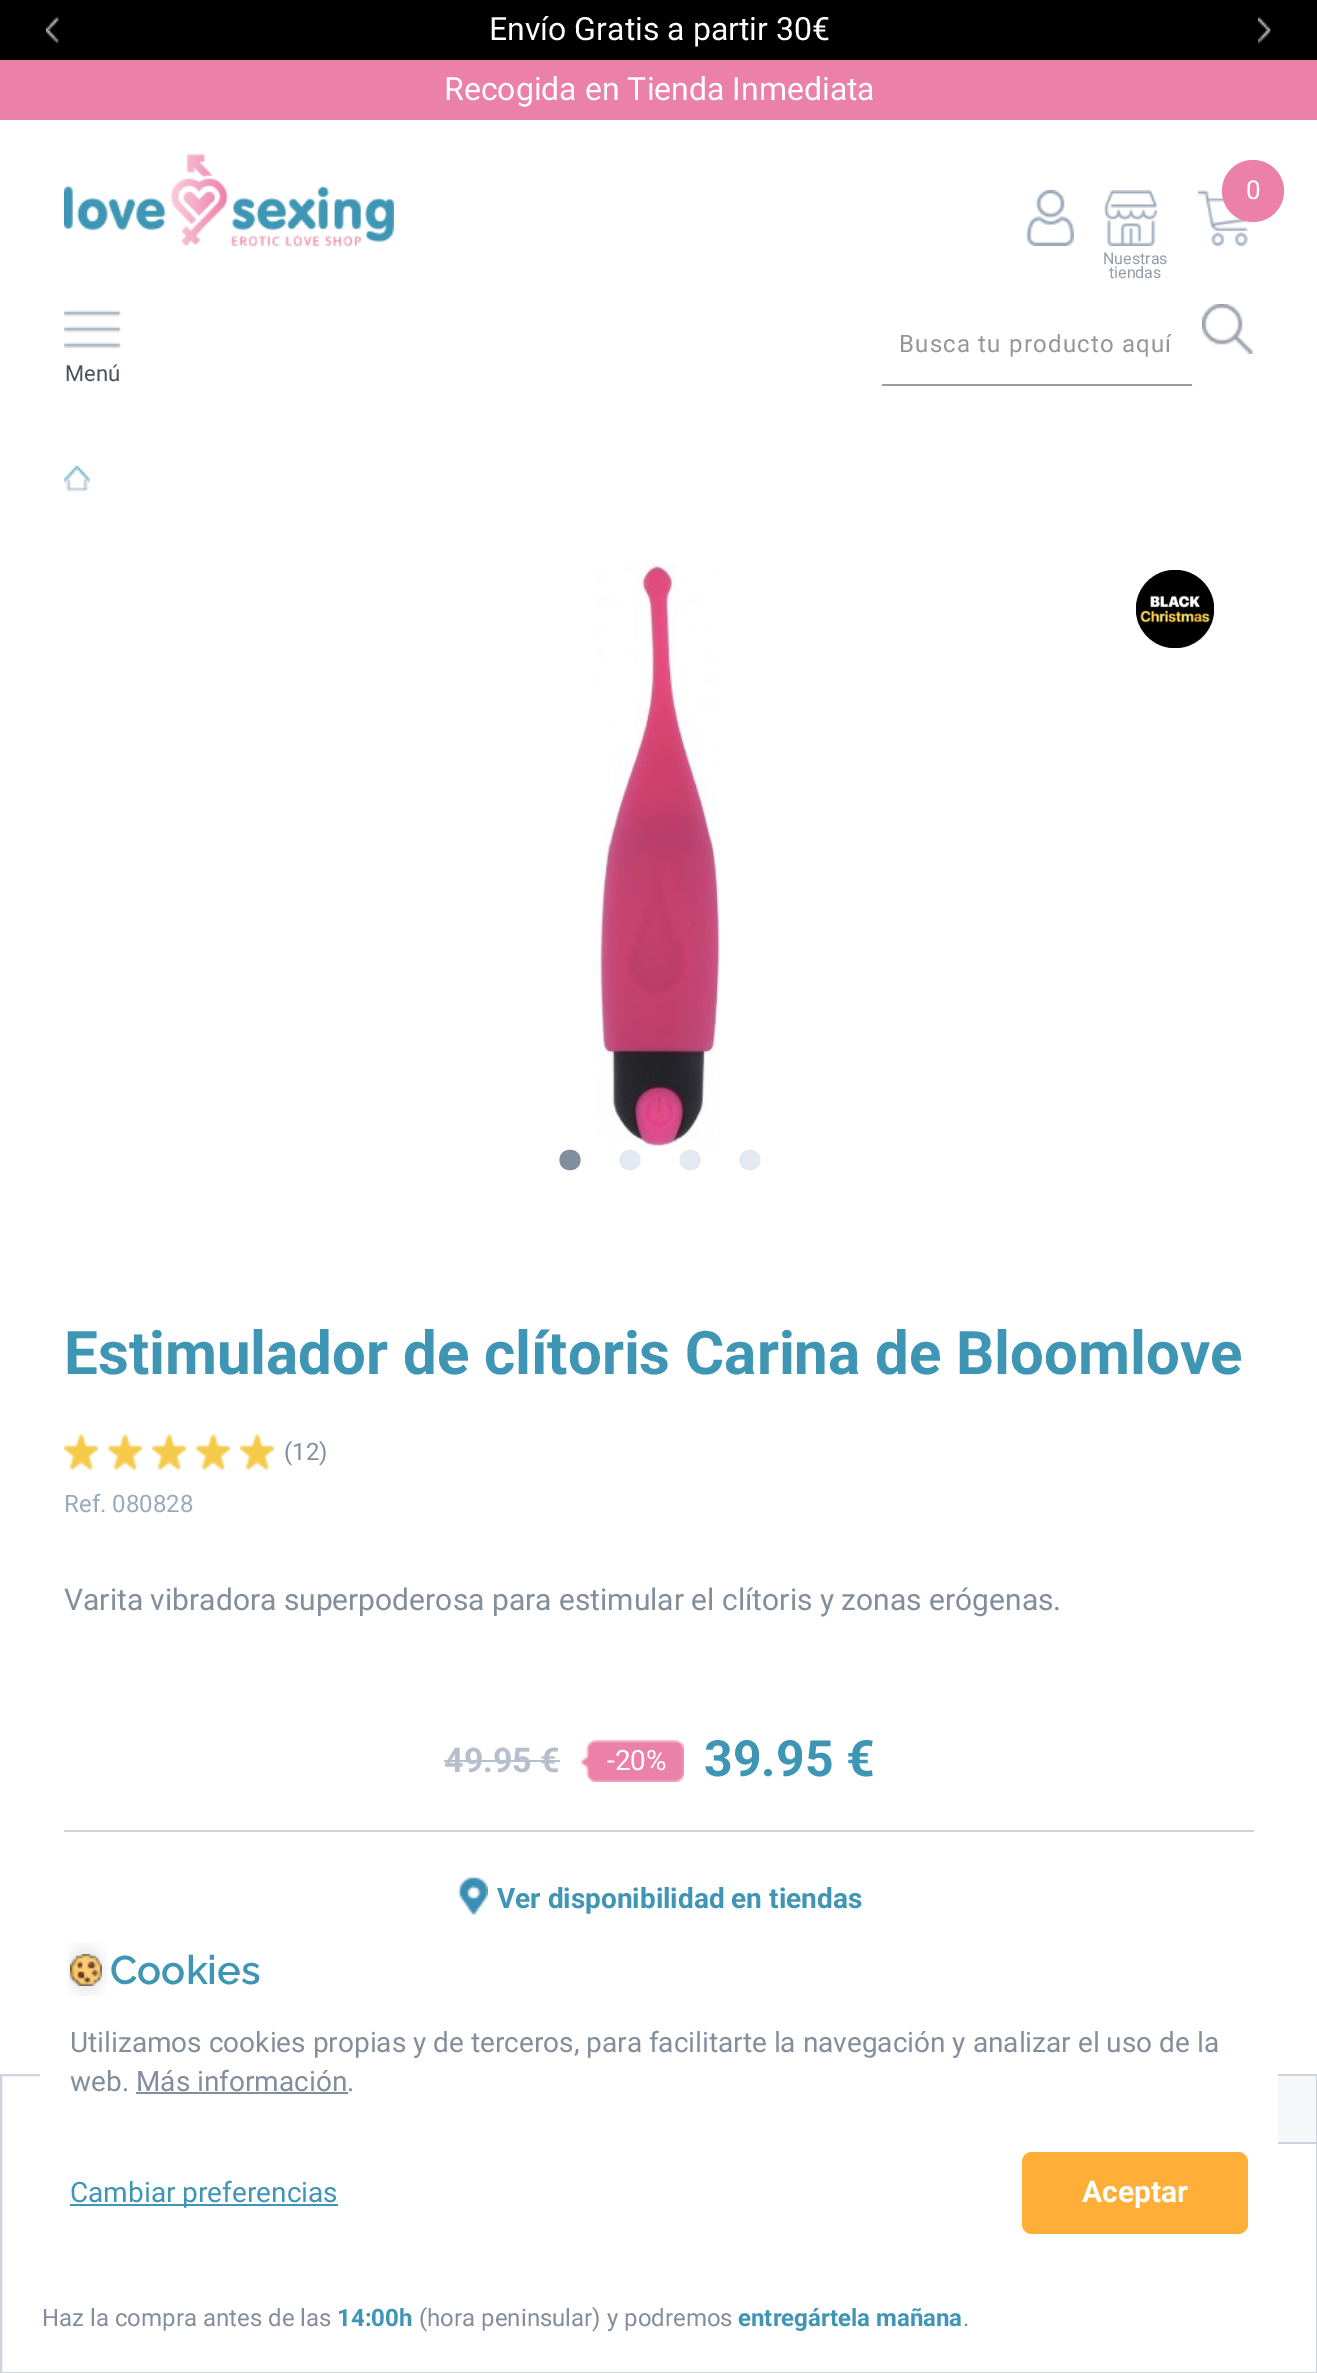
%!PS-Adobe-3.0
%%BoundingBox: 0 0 1317 2373
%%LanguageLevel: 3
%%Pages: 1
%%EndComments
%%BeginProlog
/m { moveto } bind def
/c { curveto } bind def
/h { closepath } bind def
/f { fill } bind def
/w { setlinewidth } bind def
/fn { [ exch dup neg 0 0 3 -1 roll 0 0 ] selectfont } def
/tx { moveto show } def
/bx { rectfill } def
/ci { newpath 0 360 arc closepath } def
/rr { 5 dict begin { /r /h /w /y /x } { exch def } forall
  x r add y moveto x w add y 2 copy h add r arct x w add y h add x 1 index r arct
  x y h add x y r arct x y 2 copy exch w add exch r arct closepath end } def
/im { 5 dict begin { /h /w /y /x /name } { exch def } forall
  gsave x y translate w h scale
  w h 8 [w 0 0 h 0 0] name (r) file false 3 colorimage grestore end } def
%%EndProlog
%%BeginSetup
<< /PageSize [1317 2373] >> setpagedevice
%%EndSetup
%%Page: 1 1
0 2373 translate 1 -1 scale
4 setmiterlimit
1 setgray
0 0 1317 2373 bx
0 setgray
0 0 1317 60 bx
(image0.raw) 46 17 13 26 im
/Roboto-Regular 32 fn
1 setgray
(Envío Gratis a partir 30€) 489 40 tx
(image1.raw) 1258 17 13 26 im
0.922 0.502 0.659 setrgbcolor
0 60 1317 60 bx
1 setgray
(Recogida en Tienda Inmediata) 444 100 tx
(image2.raw) 64 154 330 92 im
(image3.raw) 1026 190 48 56 im
(image4.raw) 1198 190 51 56 im
0.922 0.502 0.659 setrgbcolor
1253 191 31 ci f
/Roboto-Regular 26 fn
1 setgray
(0) 1246 199 tx
(image5.raw) 1104 190 54 56 im
/Roboto-Regular 16 fn
0.588 0.616 0.651 setrgbcolor
(Nuestras) 1103 264 tx
(tiendas) 1109 278 tx
882 384 310 2 bx
/Roboto-Regular 24 fn
0.584 setgray
899 352 m 1.2 0 (Busca tu producto aquí) ashow
(image6.raw) 1202 304 52 50 im
(image7.raw) 64 310 57 38 im
/Roboto-Regular 22 fn
0.298 0.325 0.369 setrgbcolor
(Menú) 65 381 tx
(image8.raw) 64 466 26 26 im
(image9.raw) 594 562 126 586 im
0.514 0.557 0.612 setrgbcolor
580.5 1160 m 580.5 1146.5 559.5 1146.5 559.5 1160 c 559.5 1173.5 580.5 1173.5 580.5 1160 c h f
0.89 0.914 0.941 setrgbcolor
640.5 1160 m 640.5 1146.5 619.5 1146.5 619.5 1160 c 619.5 1173.5 640.5 1173.5 640.5 1160 c h f
700.5 1160 m 700.5 1146.5 679.5 1146.5 679.5 1160 c 679.5 1173.5 700.5 1173.5 700.5 1160 c h f
760.5 1160 m 760.5 1146.5 739.5 1146.5 739.5 1160 c 739.5 1173.5 760.5 1173.5 760.5 1160 c h f
(image10.raw) 1136 570 78 78 im
/Roboto-Bold 60 fn
0.247 0.588 0.706 setrgbcolor
(Estimulador de clítoris Carina de Bloomlove) 64 1374 tx
(image11.raw) 64 1434 34 36 im
(image11.raw) 108 1434 34 36 im
(image11.raw) 152 1434 34 36 im
(image11.raw) 196 1434 34 36 im
(image11.raw) 240 1434 34 36 im
/Roboto-Regular 24 fn
0.514 0.557 0.612 setrgbcolor
(\(12\)) 284 1460 tx
0.608 0.663 0.737 setrgbcolor
(Ref. 080828) 64 1512 tx
/Roboto-Regular 30 fn
0.514 0.557 0.612 setrgbcolor
(Varita vibradora superpoderosa para estimular el clítoris y zonas erógenas.) 64 1610 tx
/Roboto-Bold 34 fn
0.714 0.753 0.804 setrgbcolor
(49.95 €) 444 1772 tx
444 1760 116 2 bx
(image12.raw) 580 1740 104 42 im
/Roboto-Regular 28 fn
1 setgray
(-20%) 607 1770 tx
/Roboto-Bold 50 fn
0.247 0.588 0.706 setrgbcolor
(39.95 €) 704 1776 tx
0.804 0.831 0.871 setrgbcolor
64 1830 1190 2 bx
(image13.raw) 457 1876 31 40 im
/Roboto-Bold 28 fn
0.247 0.588 0.706 setrgbcolor
(Ver disponibilidad en tiendas) 497 1908 tx
0.804 0.831 0.871 setrgbcolor
2 w
1 2075 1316 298 rectstroke
0.961 0.969 0.976 setrgbcolor
1278 2076 38 66 bx
0.784 0.816 0.859 setrgbcolor
1278 2142 38 2 bx
/Roboto-Regular 24 fn
0.514 0.557 0.612 setrgbcolor
(Haz la compra antes de las) 42 2326 tx
/Roboto-Bold 24 fn
0.247 0.588 0.706 setrgbcolor
(14:00h) 337 2326 tx
/Roboto-Regular 24 fn
0.514 0.557 0.612 setrgbcolor
(\(hora peninsular\) y podremos) 419 2326 tx
/Roboto-Bold 24 fn
0.247 0.588 0.706 setrgbcolor
(entregártela mañana) 738 2326 tx
/Roboto-Regular 24 fn
0.514 0.557 0.612 setrgbcolor
(.) 963 2326 tx
1 setgray
40 1916 1238 378 10 rr f
(image14.raw) 68 1942 40 54 im
/Raleway-SemiBold 40 fn
0.247 0.588 0.706 setrgbcolor
(Cookies) 110 1984 tx
/Roboto-Regular 28 fn
0.514 0.557 0.612 setrgbcolor
(Utilizamos cookies propias y de terceros, para facilitarte la navegación y analizar el uso de la) 70 2052 tx
(web. Más información.) 70 2091 tx
136 2092 212 2 bx
0.247 0.588 0.706 setrgbcolor
70 2204 268 2 bx
(Cambiar preferencias) 70 2202 tx
1 0.686 0.216 setrgbcolor
1022 2152 226 82 10 rr f
/Roboto-Bold 30 fn
1 setgray
(Aceptar) 1082 2202 tx
showpage
%%EOF
